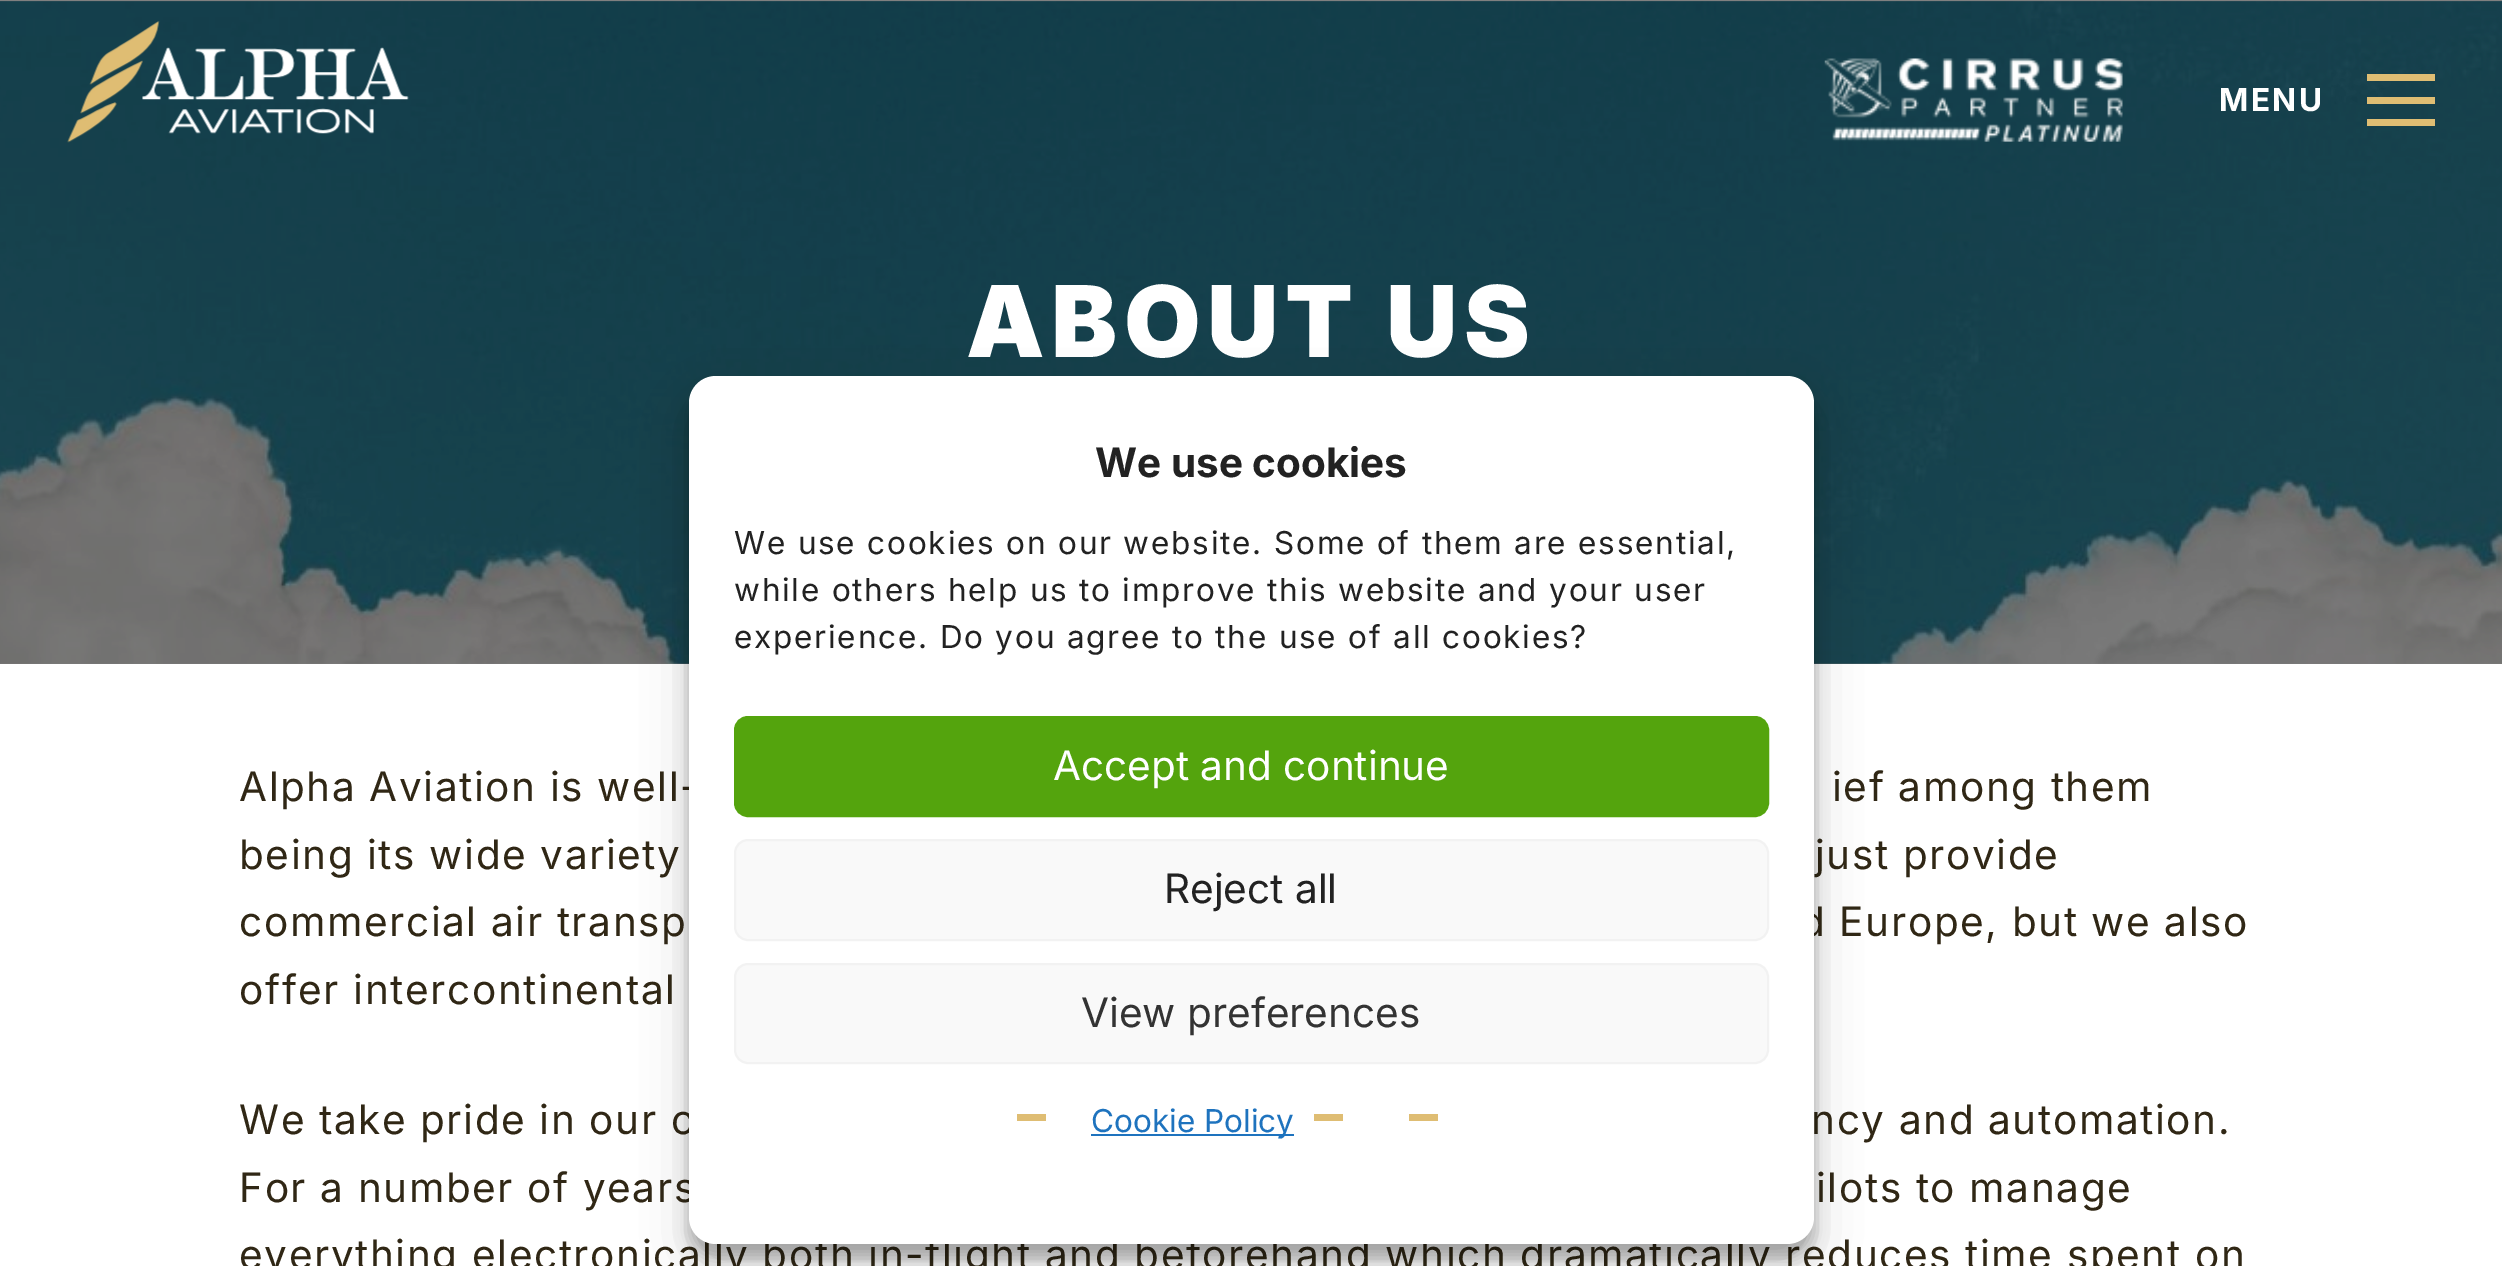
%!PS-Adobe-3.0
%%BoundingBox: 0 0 2502 1266
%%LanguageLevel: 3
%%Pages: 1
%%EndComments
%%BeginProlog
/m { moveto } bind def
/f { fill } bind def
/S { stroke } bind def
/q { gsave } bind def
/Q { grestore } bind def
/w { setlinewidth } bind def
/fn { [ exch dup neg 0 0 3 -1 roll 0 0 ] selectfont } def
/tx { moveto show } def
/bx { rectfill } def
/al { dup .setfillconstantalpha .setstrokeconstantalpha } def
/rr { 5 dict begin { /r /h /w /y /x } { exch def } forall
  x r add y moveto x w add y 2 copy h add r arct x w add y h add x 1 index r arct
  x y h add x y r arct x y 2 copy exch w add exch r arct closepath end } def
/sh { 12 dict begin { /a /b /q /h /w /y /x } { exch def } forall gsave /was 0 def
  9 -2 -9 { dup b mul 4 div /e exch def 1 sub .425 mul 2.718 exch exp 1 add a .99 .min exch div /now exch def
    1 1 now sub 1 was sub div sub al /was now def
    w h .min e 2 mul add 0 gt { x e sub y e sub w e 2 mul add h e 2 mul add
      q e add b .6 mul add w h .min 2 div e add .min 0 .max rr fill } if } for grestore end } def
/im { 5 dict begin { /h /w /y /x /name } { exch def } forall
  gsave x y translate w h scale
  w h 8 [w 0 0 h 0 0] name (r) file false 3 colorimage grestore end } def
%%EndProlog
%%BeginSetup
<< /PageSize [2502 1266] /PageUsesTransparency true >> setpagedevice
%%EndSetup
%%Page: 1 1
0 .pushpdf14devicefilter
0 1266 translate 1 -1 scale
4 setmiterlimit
1 setgray
0 0 2502 1266 bx
0.502 setgray
0 0 2502 664 bx
(image2.raw) 0 1 2502 663 im
(image0.raw) 67 21 342 122 im
(image1.raw) 1824 58 299 84 im
/Inter-Bold 31.5 fn
1 setgray
2219 111 m 2.5 0 (MENU) ashow
0.875 0.741 0.451 setrgbcolor
2367 74 68 7 bx
2367 97 68 7 bx
2367 119 68 7 bx
/Inter-Black 99 fn
1 setgray
966 357 m 6.5 0 (ABOUT US) ashow
/Inter-Regular 40.5 fn
0.188 0.153 0.082 setrgbcolor
239 801 m 1.62 0 (Alpha Aviation is well-) ashow
1832 801 m 1.62 0 (ief among them) ashow
239 869 m 1.62 0 (being its wide variety) ashow
1815 869 m 1.62 0 (just provide) ashow
239 936 m 1.62 0 (commercial air transp) ashow
1800 936 m 1.62 0 (d Europe, but we also) ashow
239 1004 m 1.62 0 (offer intercontinental) ashow
239 1134 m 1.62 0 (We take pride in our c) ashow
1811 1134 m 1.62 0 (ncy and automation.) ashow
239 1202 m 1.62 0 (For a number of years) ashow
1816 1202 m 1.62 0 (ilots to manage) ashow
239 1269 m 1.62 0 (everything electronically both in-flight and beforehand which dramatically reduces time spent on) ashow
0 setgray
689 389 1125 869 27 7 0.23 sh
689 398 1125 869 27 22.5 0.19 sh
1 setgray
689 376 1125 868 27 rr f
/Inter-Bold 40.5 fn
0.133 setgray
(We use cookies) 1095 477 tx
/Inter-Regular 31.5 fn
734 554 m 1.8 0 (We use cookies on our website. Some of them are essential,) ashow
734 601 m 1.8 0 (while others help us to improve this website and your user) ashow
734 648 m 1.8 0 (experience. Do you agree to the use of all cookies?) ashow
0.329 0.643 0.051 setrgbcolor
735 717 1033 99 13 rr q f Q
2 w
S
/Inter-Regular 40.5 fn
1 setgray
(Accept and continue) 1053 780 tx
0.976 setgray
735 840 1033 100 13 rr q f Q
0.949 setgray
S
0.133 setgray
(Reject all) 1164 903 tx
0.976 setgray
735 964 1033 99 13 rr q f Q
0.949 setgray
S
0.2 setgray
(View preferences) 1081 1027 tx
0.875 0.741 0.451 setrgbcolor
1017 1114 29 7 bx
0.118 0.451 0.745 setrgbcolor
1091 1134 203 2 bx
/Inter-Regular 31.5 fn
(Cookie Policy) 1091 1132 tx
0.875 0.741 0.451 setrgbcolor
1314 1114 29 7 bx
1409 1114 29 7 bx
.poppdf14devicefilter showpage
%%EOF
